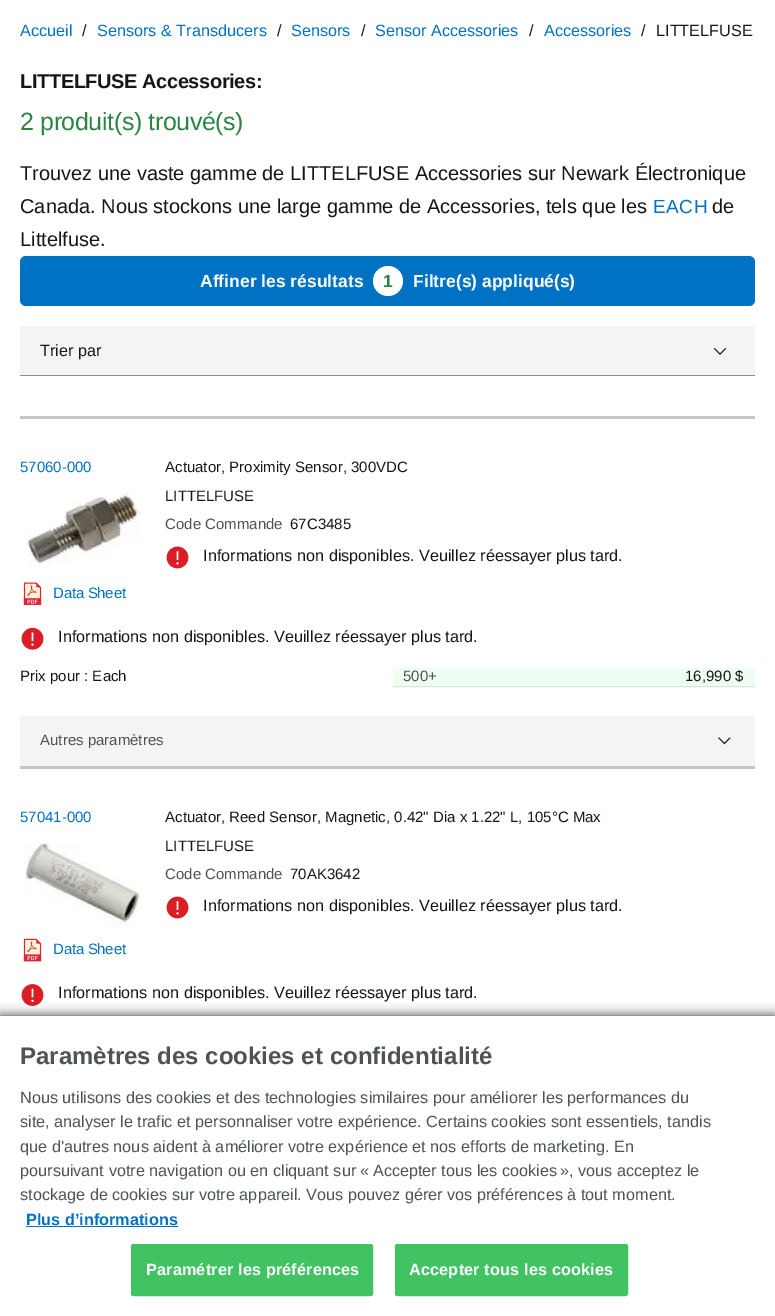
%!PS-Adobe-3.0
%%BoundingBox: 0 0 775 1316
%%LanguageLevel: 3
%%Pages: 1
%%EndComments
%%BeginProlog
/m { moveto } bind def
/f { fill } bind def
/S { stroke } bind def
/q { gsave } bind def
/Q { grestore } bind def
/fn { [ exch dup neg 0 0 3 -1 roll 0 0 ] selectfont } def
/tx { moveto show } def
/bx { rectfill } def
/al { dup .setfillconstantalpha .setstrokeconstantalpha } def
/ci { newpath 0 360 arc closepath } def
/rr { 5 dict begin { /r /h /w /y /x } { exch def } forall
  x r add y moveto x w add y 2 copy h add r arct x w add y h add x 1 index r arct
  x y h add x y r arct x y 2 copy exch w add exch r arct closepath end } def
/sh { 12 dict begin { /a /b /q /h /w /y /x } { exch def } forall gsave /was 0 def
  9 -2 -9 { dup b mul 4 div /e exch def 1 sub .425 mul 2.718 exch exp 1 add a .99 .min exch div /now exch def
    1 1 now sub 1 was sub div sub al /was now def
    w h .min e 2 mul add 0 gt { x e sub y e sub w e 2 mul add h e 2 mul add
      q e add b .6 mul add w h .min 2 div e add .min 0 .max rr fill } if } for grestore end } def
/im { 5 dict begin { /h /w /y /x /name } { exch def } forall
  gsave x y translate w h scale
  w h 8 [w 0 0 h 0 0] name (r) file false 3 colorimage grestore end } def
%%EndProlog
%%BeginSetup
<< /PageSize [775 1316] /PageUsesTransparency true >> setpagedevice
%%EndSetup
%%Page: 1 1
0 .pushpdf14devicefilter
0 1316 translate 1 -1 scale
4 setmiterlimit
1 setgray
0 0 775 1316 bx
/LiberationSans-Regular 16.25 fn
0 0.447 0.765 setrgbcolor
(Accueil) 20 36 tx
0.086 setgray
(/) 82 36 tx
0 0.447 0.765 setrgbcolor
(Sensors & Transducers) 97 36 tx
0.086 setgray
(/) 277 36 tx
0 0.447 0.765 setrgbcolor
(Sensors) 291 36 tx
0.086 setgray
(/) 361 36 tx
0 0.447 0.765 setrgbcolor
(Sensor Accessories) 375 36 tx
0.086 setgray
(/) 529 36 tx
0 0.447 0.765 setrgbcolor
(Accessories) 544 36 tx
0.086 setgray
(/) 641 36 tx
(LITTELFUSE) 656 36 tx
/LiberationSans-Bold 20 fn
20 88 m -0.4 0 (LITTELFUSE Accessories:) ashow
/LiberationSans-Regular 25 fn
0.165 0.518 0.259 setrgbcolor
20 130 m -0.4 0 (2 produit\(s\) trouvé\(s\)) ashow
/LiberationSans-Regular 20 fn
0.086 setgray
(Trouvez une vaste gamme de LITTELFUSE Accessories sur Newark Électronique) 20 180 tx
(Canada. Nous stockons une large gamme de Accessories, tels que les) 20 213 tx
/LiberationSans-Regular 19 fn
0 0.447 0.765 setrgbcolor
653 213 m 0.5 0 (EACH) ashow
/LiberationSans-Regular 20 fn
0.086 setgray
(de) 712 213 tx
(Littelfuse.) 20 246 tx
0 0.447 0.765 setrgbcolor
20 256 735 50 6 rr f
/LiberationSans-Bold 17.5 fn
1 setgray
(Affiner les résultats) 200 287 tx
388 281 15 ci f
0.165 0.518 0.259 setrgbcolor
(1) 383 287 tx
1 setgray
(Filtre\(s\) appliqué\(s\)) 413 287 tx
0.957 setgray
20 326 735 49 bx
0.553 setgray
20 375 735 1 bx
/LiberationSans-Regular 16.25 fn
0.086 setgray
(Trier par) 40 356 tx
(image0.raw) 713 348 14 7 im
0.776 setgray
20 416 735 3 bx
/LiberationSans-Regular 15 fn
0 0.447 0.765 setrgbcolor
(57060-000) 20 472 tx
(image1.raw) 25 492 116 72 im
(image2.raw) 23 582 19 23 im
53 598 m -0.25 0 (Data Sheet) ashow
0.086 setgray
(Actuator, Proximity Sensor, 300VDC) 165 472 tx
(LITTELFUSE) 165 501 tx
0.322 setgray
(Code Commande) 165 529 tx
0.086 setgray
(67C3485) 290 529 tx
(image3.raw) 166 546 23 23 im
/LiberationSans-Regular 16.25 fn
(Informations non disponibles. Veuillez réessayer plus tard.) 203 561 tx
(image4.raw) 21 627 23 23 im
(Informations non disponibles. Veuillez réessayer plus tard.) 58 642 tx
/LiberationSans-Regular 15 fn
(Prix pour : Each) 20 681 tx
0.933 0.996 0.949 setrgbcolor
393 668 362 20 bx
0.878 setgray
393 686 362 1 bx
0.322 setgray
(500+) 403 681 tx
0.086 setgray
(16,990 $) 685 681 tx
0.957 setgray
20 716 735 50 bx
0.322 setgray
(Autres paramètres) 40 745 tx
(image5.raw) 718 737 13 8 im
0.776 setgray
20 766 735 3 bx
0 0.447 0.765 setrgbcolor
(57041-000) 20 822 tx
(image6.raw) 24 842 116 85 im
(image7.raw) 23 938 19 24 im
53 954 m -0.25 0 (Data Sheet) ashow
0.086 setgray
(Actuator, Reed Sensor, Magnetic, 0.42" Dia x 1.22" L, 105°C Max) 165 822 tx
(LITTELFUSE) 165 851 tx
0.322 setgray
(Code Commande) 165 879 tx
0.086 setgray
(70AK3642) 290 879 tx
(image3.raw) 166 896 23 23 im
/LiberationSans-Regular 16.25 fn
(Informations non disponibles. Veuillez réessayer plus tard.) 203 911 tx
(image8.raw) 21 984 23 22 im
(Informations non disponibles. Veuillez réessayer plus tard.) 58 998 tx
0 setgray
0 1016 775 300 0 6 0.8 sh
1 setgray
0 1016 775 300 bx
/LiberationSans-Bold 24 fn
0.302 0.325 0.345 setrgbcolor
(Paramètres des cookies et confidentialité) 20 1064 tx
/LiberationSans-Regular 16.25 fn
(Nous utilisons des cookies et des technologies similaires pour améliorer les performances du) 20 1103 tx
(site, analyser le trafic et personnaliser votre expérience. Certains cookies sont essentiels, tandis) 20 1127 tx
(que d'autres nous aident à améliorer votre expérience et nos efforts de marketing. En) 20 1152 tx
(poursuivant votre navigation ou en cliquant sur « Accepter tous les cookies », vous acceptez le) 20 1176 tx
(stockage de cookies sur votre appareil. Vous pouvez gérer vos préférences à tout moment.) 20 1200 tx
/LiberationSans-Bold 16.25 fn
0 0.447 0.765 setrgbcolor
(Plus d’informations) 26 1225 tx
26 1226 152 1 bx
0.255 0.765 0.388 setrgbcolor
131.5 1244.5 241 51 2 rr q f Q
S
1 setgray
146 1275 m 0.15 0 (Paramétrer les préférences) ashow
0.255 0.765 0.388 setrgbcolor
395.5 1244.5 232 51 2 rr q f Q
S
1 setgray
409 1275 m 0.15 0 (Accepter tous les cookies) ashow
.poppdf14devicefilter showpage
%%EOF
